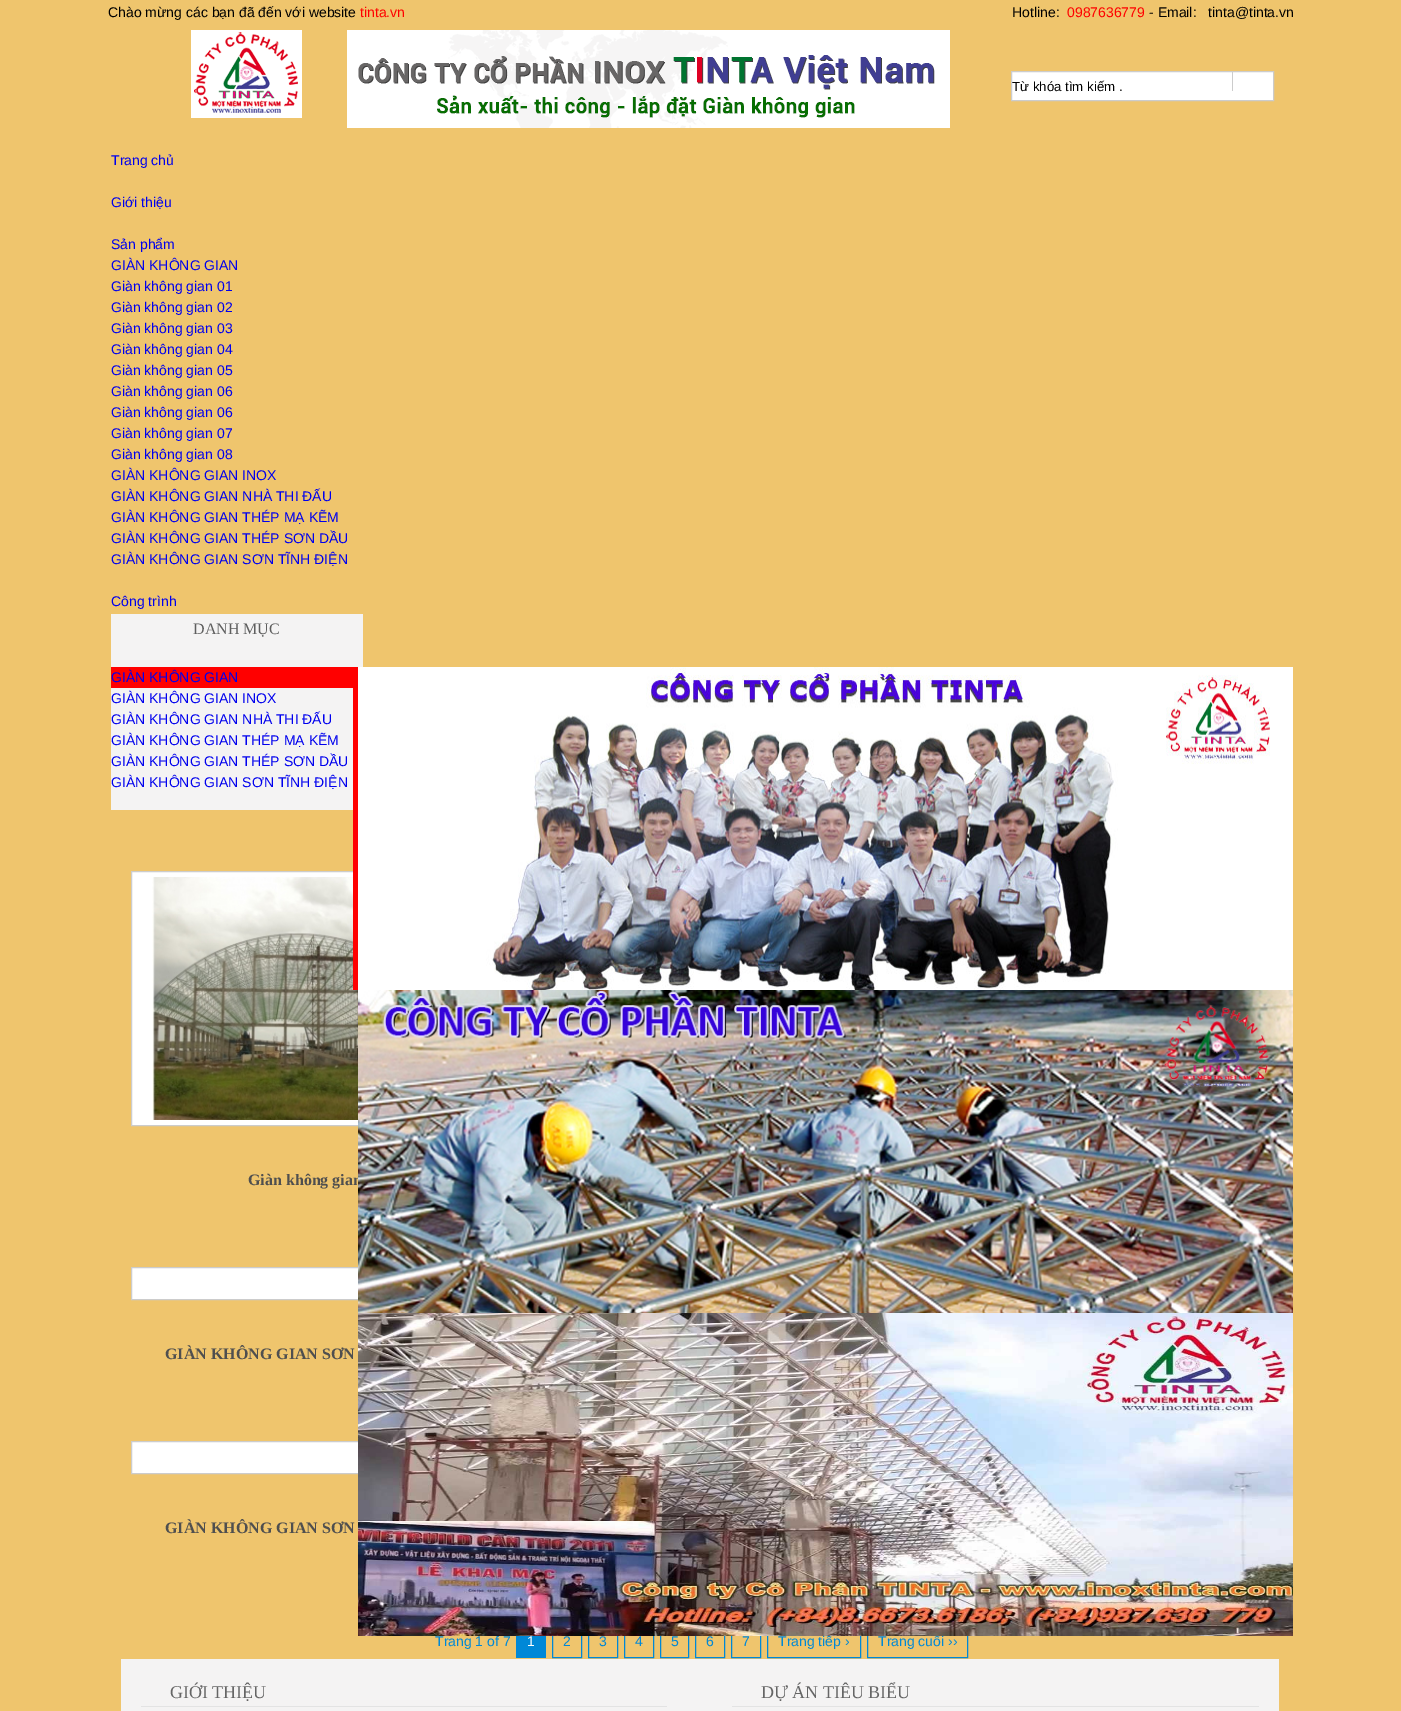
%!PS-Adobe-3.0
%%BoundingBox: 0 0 1401 1711
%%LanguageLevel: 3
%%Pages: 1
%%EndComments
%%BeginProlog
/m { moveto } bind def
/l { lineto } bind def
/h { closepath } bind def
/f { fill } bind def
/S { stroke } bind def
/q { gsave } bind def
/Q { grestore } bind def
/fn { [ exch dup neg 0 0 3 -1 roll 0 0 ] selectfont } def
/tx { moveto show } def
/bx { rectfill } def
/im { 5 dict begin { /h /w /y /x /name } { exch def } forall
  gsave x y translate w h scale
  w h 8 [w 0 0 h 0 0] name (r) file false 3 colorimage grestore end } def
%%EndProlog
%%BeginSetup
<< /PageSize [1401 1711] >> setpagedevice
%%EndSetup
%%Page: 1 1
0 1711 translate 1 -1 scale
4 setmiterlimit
0.937 0.773 0.427 setrgbcolor
0 0 1401 1711 bx
/LiberationSans-Regular 14 fn
0 setgray
(Chào mừng các bạn đã đến với website) 108 17 tx
1 0 0 setrgbcolor
(tinta.vn) 360 17 tx
0 setgray
(Hotline:) 1012 17 tx
1 0 0 setrgbcolor
(0987636779) 1067 17 tx
0 setgray
(- Email:   tinta@tinta.vn) 1149 17 tx
(image0.raw) 191 30 111 88 im
(image1.raw) 347 30 603 98 im
1 setgray
1011.5 71.5 m 1273.5 71.5 l 1273.5 100.5 l 1011.5 100.5 l h q f Q
0.8 setgray
S
/LiberationSans-Regular 13.25 fn
0 setgray
(Từ khóa tìm kiếm .) 1012 91 tx
0.8 setgray
1232 72 1 19 bx
/LiberationSans-Regular 14 fn
0 0 0.933 setrgbcolor
(Trang chủ) 111 165 tx
(Giới thiệu) 111 207 tx
(Sản phẩm) 111 249 tx
(GIÀN KHÔNG GIAN) 111 270 tx
(Giàn không gian 01) 111 291 tx
(Giàn không gian 02) 111 312 tx
(Giàn không gian 03) 111 333 tx
(Giàn không gian 04) 111 354 tx
(Giàn không gian 05) 111 375 tx
(Giàn không gian 06) 111 396 tx
(Giàn không gian 06) 111 417 tx
(Giàn không gian 07) 111 438 tx
(Giàn không gian 08) 111 459 tx
(GIÀN KHÔNG GIAN INOX) 111 480 tx
(GIÀN KHÔNG GIAN NHÀ THI ĐẤU) 111 501 tx
(GIÀN KHÔNG GIAN THÉP MẠ KẼM) 111 522 tx
(GIÀN KHÔNG GIAN THÉP SƠN DẦU) 111 543 tx
(GIÀN KHÔNG GIAN SƠN TĨNH ĐIỆN) 111 564 tx
(Công trình) 111 606 tx
0.957 0.953 0.953 setrgbcolor
111 614 252 196 bx
/LiberationSerif-Regular 16 fn
0.369 setgray
(DANH MỤC) 193 634 tx
1 0 0 setrgbcolor
111 667 242 21 bx
/LiberationSans-Regular 14 fn
0 0 0.933 setrgbcolor
(GIÀN KHÔNG GIAN) 111 682 tx
1 setgray
132 872 226 253 bx
0.8 setgray
131.5 871.5 359 254 rectstroke
(image5.raw) 152 877 206 243 im
1 0 0 setrgbcolor
353 667 5 323 bx
(image2.raw) 358 667 935 323 im
/LiberationSerif-Bold 16 fn
0.31 setgray
(Giàn không gian) 248 1185 tx
1 setgray
132 1268 226 31 bx
0.8 setgray
131.5 1267.5 359 32 rectstroke
(image3.raw) 358 990 935 323 im
1 setgray
132 1442 226 31 bx
0.8 setgray
131.5 1441.5 359 32 rectstroke
/LiberationSans-Regular 14 fn
0 0.533 0.843 setrgbcolor
(Trang 1 of 7) 435 1646 tx
552.5 1625.5 29 32 rectstroke
588.5 1625.5 29 32 rectstroke
624.5 1625.5 29 32 rectstroke
660.5 1625.5 28 32 rectstroke
695.5 1625.5 29 32 rectstroke
731.5 1625.5 29 32 rectstroke
767.5 1625.5 93 32 rectstroke
(Trang tiếp ›) 778 1646 tx
867.5 1625.5 100 32 rectstroke
(Trang cuối ››) 878 1646 tx
(image4.raw) 358 1313 935 323 im
0 0 0.933 setrgbcolor
(GIÀN KHÔNG GIAN INOX) 111 703 tx
(GIÀN KHÔNG GIAN NHÀ THI ĐẤU) 111 724 tx
(GIÀN KHÔNG GIAN THÉP MẠ KẼM) 111 745 tx
(GIÀN KHÔNG GIAN THÉP SƠN DẦU) 111 766 tx
(GIÀN KHÔNG GIAN SƠN TĨNH ĐIỆN) 111 787 tx
/LiberationSerif-Bold 16 fn
0.31 setgray
(GIÀN KHÔNG GIAN SƠN) 165 1359 tx
(GIÀN KHÔNG GIAN SƠN) 165 1533 tx
0 0.533 0.843 setrgbcolor
516 1636 30 22 bx
/LiberationSans-Regular 14 fn
1 setgray
(1) 527 1646 tx
0 0.533 0.843 setrgbcolor
(2) 563 1646 tx
(3) 599 1646 tx
(4) 635 1646 tx
(5) 671 1646 tx
(6) 706 1646 tx
(7) 742 1646 tx
0.957 0.953 0.953 setrgbcolor
121 1659 1158 52 bx
0.89 setgray
141 1706 526 1 bx
/LiberationSerif-Regular 18 fn
0.396 setgray
(GIỚI THIỆU) 170 1698 tx
0.89 setgray
732 1706 527 1 bx
0.396 setgray
(DỰ ÁN TIÊU BIỂU) 761 1698 tx
showpage
%%EOF
